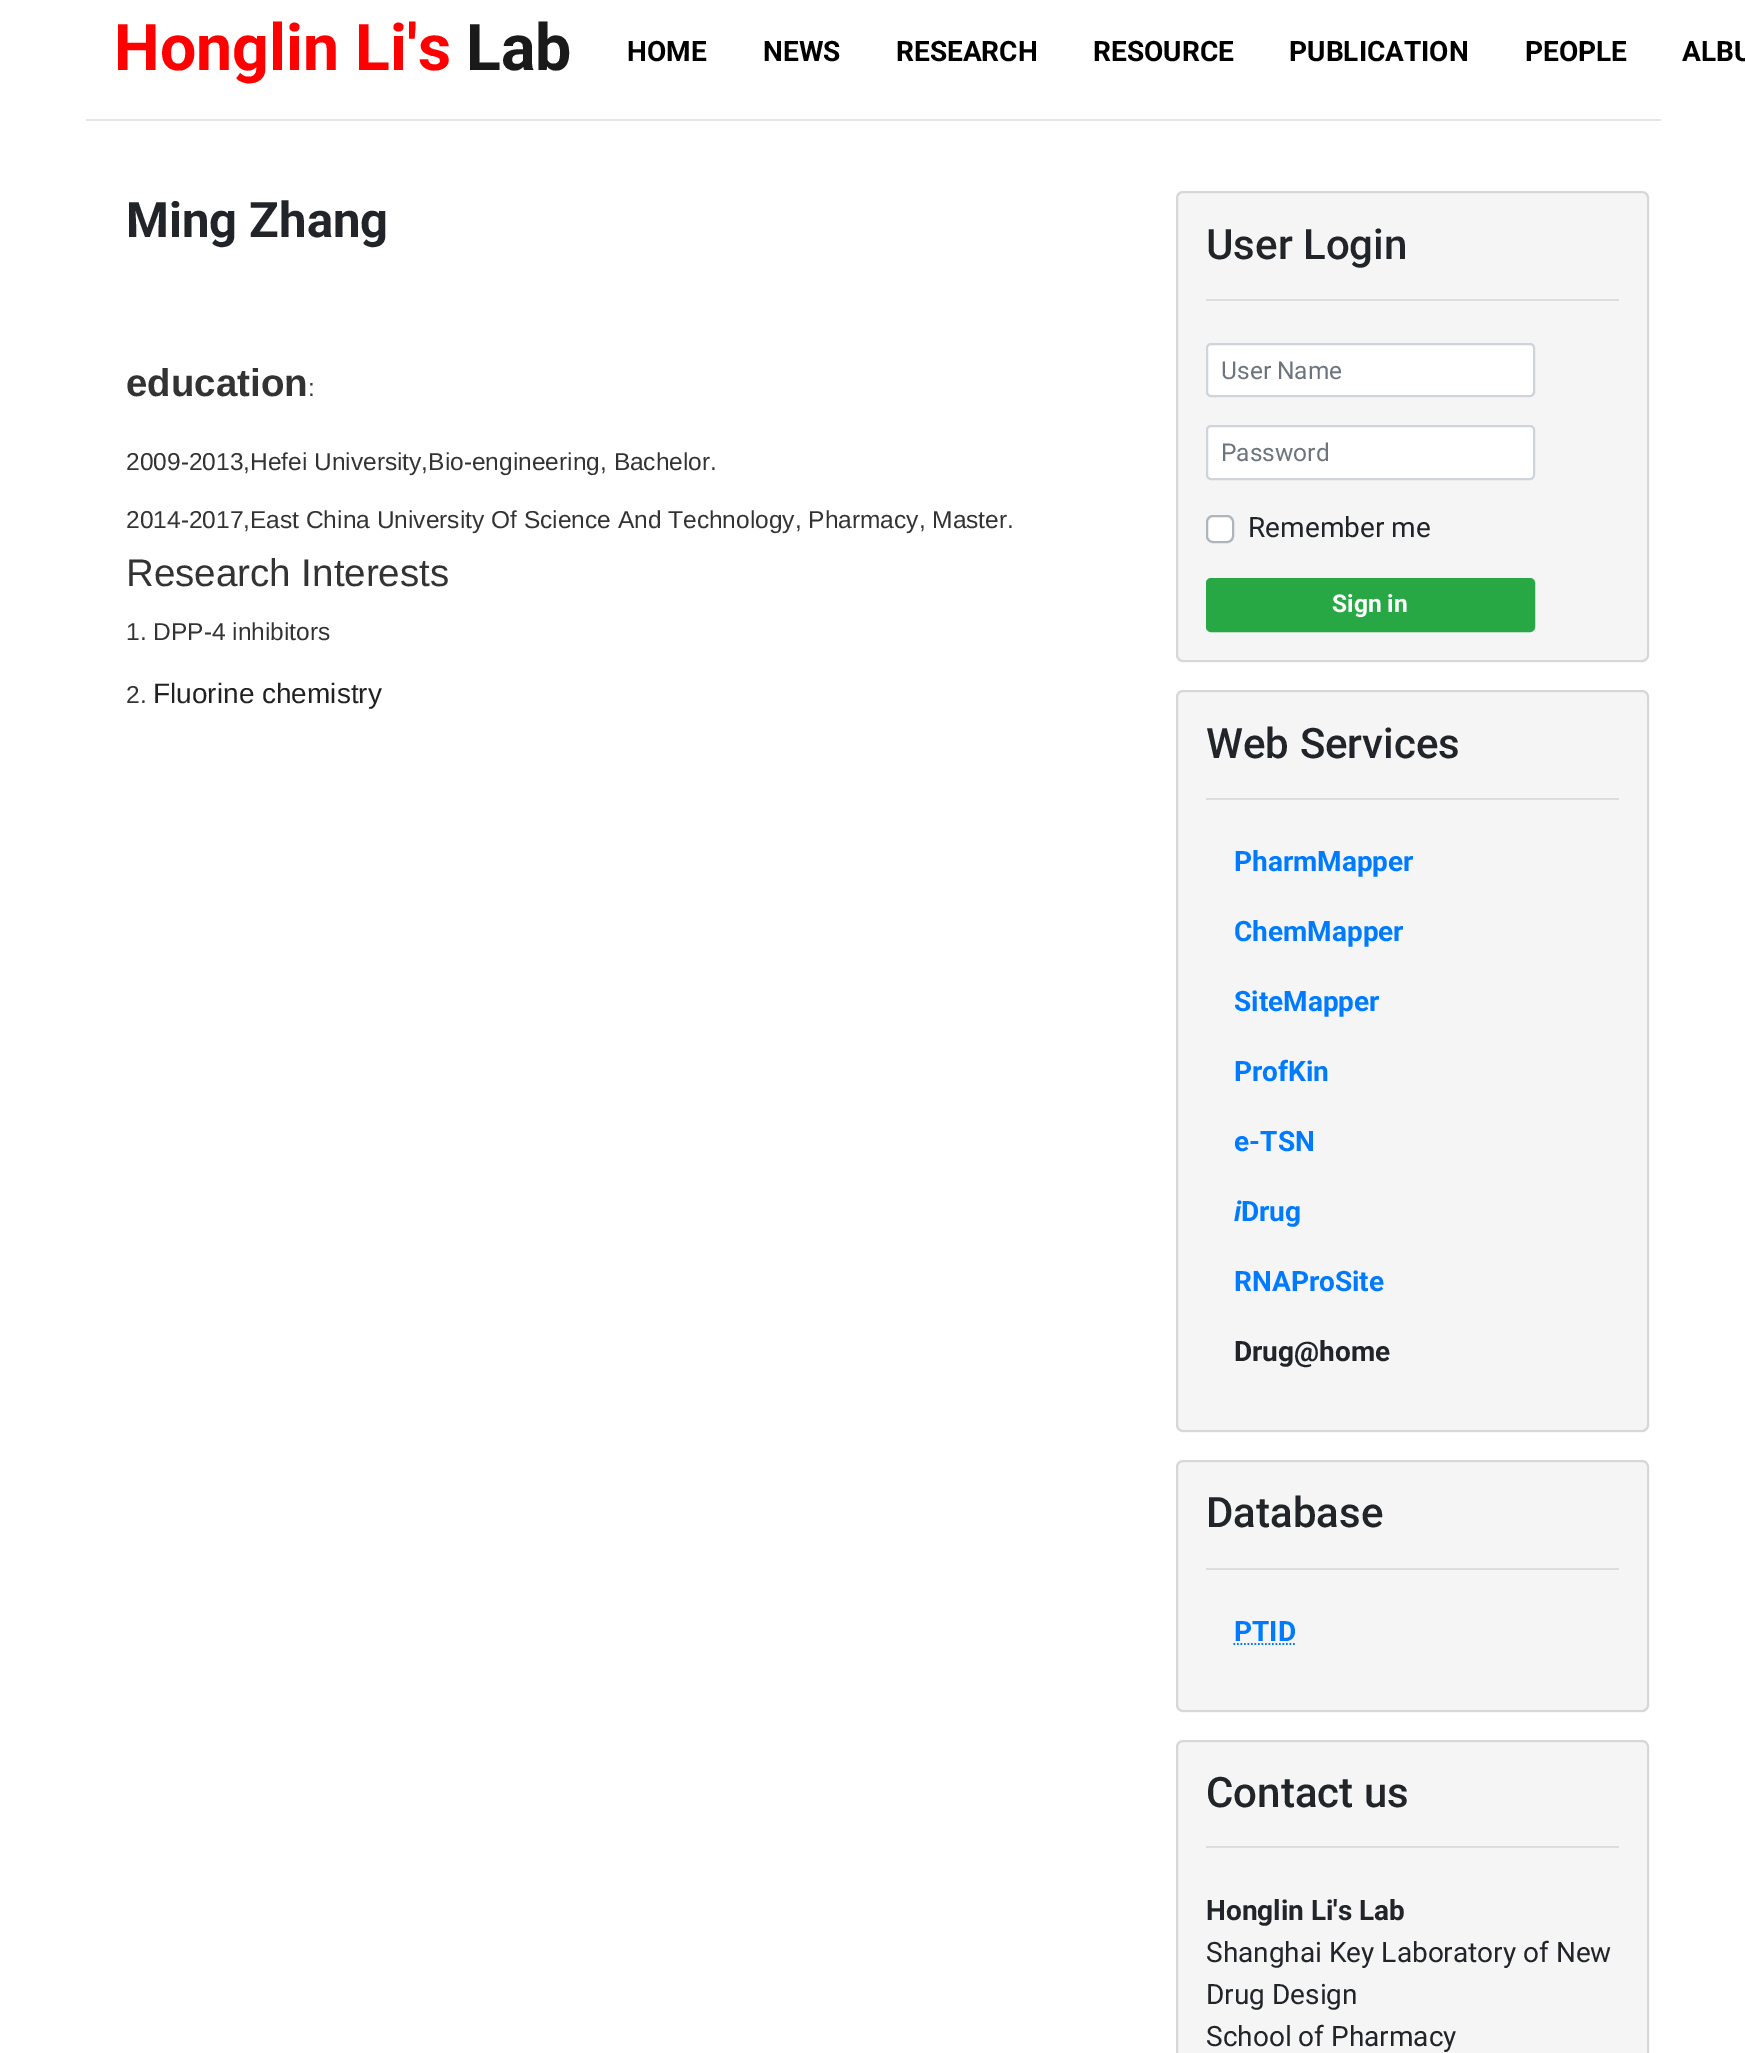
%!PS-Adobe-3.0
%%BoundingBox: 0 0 1745 2053
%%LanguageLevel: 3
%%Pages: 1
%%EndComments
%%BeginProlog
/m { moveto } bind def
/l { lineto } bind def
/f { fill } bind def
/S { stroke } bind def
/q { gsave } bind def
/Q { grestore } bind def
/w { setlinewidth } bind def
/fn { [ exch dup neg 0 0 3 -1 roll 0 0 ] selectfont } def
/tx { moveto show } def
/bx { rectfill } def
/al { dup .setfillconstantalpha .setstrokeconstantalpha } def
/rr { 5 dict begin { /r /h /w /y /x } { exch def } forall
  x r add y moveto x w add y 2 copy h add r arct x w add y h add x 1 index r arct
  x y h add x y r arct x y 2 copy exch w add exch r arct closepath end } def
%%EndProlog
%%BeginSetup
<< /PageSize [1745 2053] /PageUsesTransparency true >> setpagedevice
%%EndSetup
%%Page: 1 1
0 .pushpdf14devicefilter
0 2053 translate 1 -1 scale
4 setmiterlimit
1 setgray
0 0 1745 2053 bx
/Roboto-Bold 64.5 fn
1 0 0 setrgbcolor
(Honglin Li's) 114 70 tx
0.102 setgray
(Lab) 466 70 tx
/Roboto-Bold 28 fn
0 setgray
(HOME) 627 61 tx
(NEWS) 763 61 tx
(RESEARCH) 896 61 tx
(RESOURCE) 1093 61 tx
(PUBLICATION) 1289 61 tx
(PEOPLE) 1525 61 tx
(ALBU) 1682 61 tx
0.902 setgray
86 119 1575 2 bx
/Roboto-Bold 49 fn
0.129 0.145 0.161 setrgbcolor
(Ming Zhang) 126 237 tx
/LiberationSans-Bold 38.5 fn
0.2 setgray
(education) 126 396 tx
/LiberationSans-Regular 24.5 fn
(:) 308 396 tx
(2009-2013,Hefei University,Bio-engineering, Bachelor.) 126 470 tx
(2014-2017,East China University Of Science And Technology, Pharmacy, Master.) 126 528 tx
/LiberationSans-Regular 38.5 fn
(Research Interests) 126 586 tx
/LiberationSans-Regular 24.5 fn
(1. DPP-4 inhibitors) 126 640 tx
(2.) 126 703 tx
/LiberationSans-Regular 28 fn
0.129 setgray
(Fluorine chemistry) 153 703 tx
0.961 setgray
1176 191 473 471 7 rr f
0.12 al
0 setgray
2 w
1177 192 471 469 6 rr S
/Roboto-Medium 42 fn
1 al
0.129 0.145 0.161 setrgbcolor
(User Login) 1206 259 tx
0.867 setgray
1206 299 413 2 bx
1 setgray
1207 344 327 52 4 rr q f Q
0.808 0.831 0.855 setrgbcolor
S
/Roboto-Regular 24.5 fn
0.424 0.459 0.49 setrgbcolor
(User Name) 1221 379 tx
1 setgray
1207 426 327 53 4 rr q f Q
0.808 0.831 0.855 setrgbcolor
S
0.424 0.459 0.49 setrgbcolor
(Password) 1221 461 tx
1 setgray
1207 516 26 26 6 rr q f Q
0.678 0.71 0.741 setrgbcolor
S
/Roboto-Regular 28 fn
0.129 0.145 0.161 setrgbcolor
(Remember me) 1248 537 tx
0.157 0.655 0.271 setrgbcolor
1207 579 327 52 4 rr q f Q
S
/Roboto-Bold 24.5 fn
1 setgray
(Sign in) 1332 612 tx
0.961 setgray
1176 690 473 742 7 rr f
0.12 al
0 setgray
1177 691 471 740 6 rr S
/Roboto-Medium 42 fn
1 al
0.129 0.145 0.161 setrgbcolor
(Web Services) 1206 758 tx
0.867 setgray
1206 798 413 2 bx
/Roboto-Bold 28 fn
0 0.482 1 setrgbcolor
(PharmMapper) 1234 871 tx
(ChemMapper) 1234 941 tx
(SiteMapper) 1234 1011 tx
(ProfKin) 1234 1081 tx
(e-TSN) 1234 1151 tx
/Roboto-BoldItalic 28 fn
(i) 1234 1221 tx
/Roboto-Bold 28 fn
(Drug) 1241 1221 tx
(RNAProSite) 1234 1291 tx
0.129 0.145 0.161 setrgbcolor
(Drug@home) 1234 1361 tx
0.961 setgray
1176 1460 473 252 7 rr f
0.12 al
0 setgray
1177 1461 471 250 6 rr S
/Roboto-Medium 42 fn
1 al
0.129 0.145 0.161 setrgbcolor
(Database) 1206 1527 tx
0.867 setgray
1206 1568 413 2 bx
/Roboto-Bold 28 fn
0 0.482 1 setrgbcolor
(PTID) 1234 1641 tx
1.8 w
[1.75 1.75] 0 setdash
1233.5 1644 m 1295.5 1644 l S
0.961 setgray
1176 1740 473 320 7 rr f
0.12 al
0 setgray
2 w
[] 0 setdash
1177 1741 471 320 6 rr S
/Roboto-Medium 42 fn
1 al
0.129 0.145 0.161 setrgbcolor
(Contact us) 1206 1807 tx
0.867 setgray
1206 1846 413 2 bx
/Roboto-Bold 28 fn
0.129 0.145 0.161 setrgbcolor
(Honglin Li's Lab) 1206 1920 tx
/Roboto-Regular 28 fn
(Shanghai Key Laboratory of New) 1206 1962 tx
(Drug Design) 1206 2004 tx
(School of Pharmacy) 1206 2046 tx
.poppdf14devicefilter showpage
%%EOF
